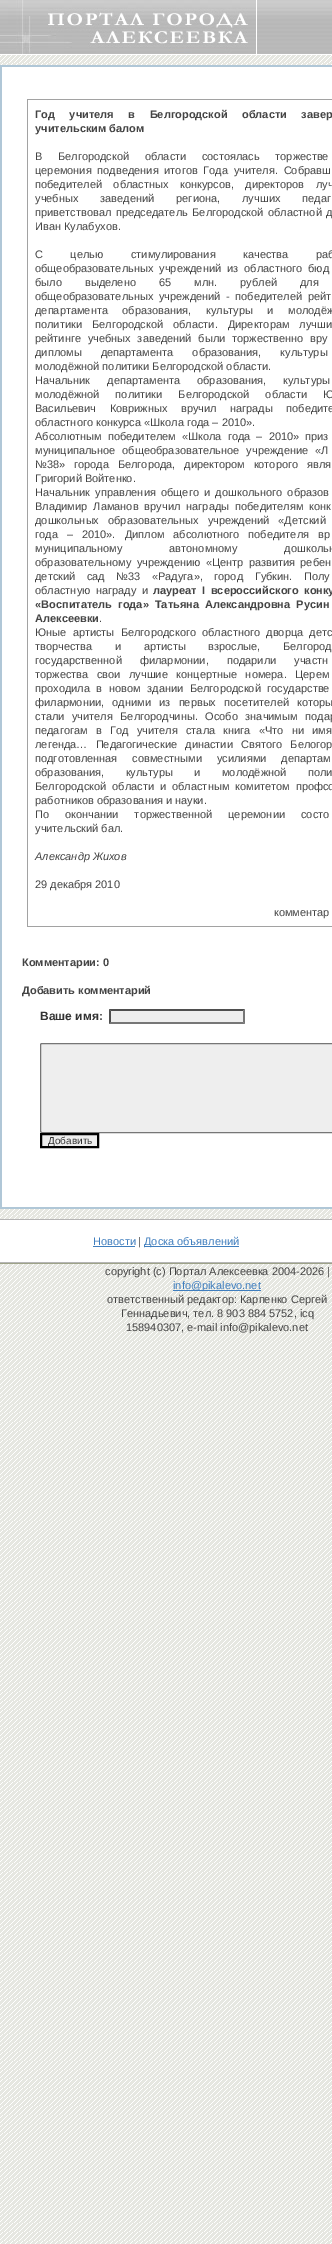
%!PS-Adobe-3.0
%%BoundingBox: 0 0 332 2244
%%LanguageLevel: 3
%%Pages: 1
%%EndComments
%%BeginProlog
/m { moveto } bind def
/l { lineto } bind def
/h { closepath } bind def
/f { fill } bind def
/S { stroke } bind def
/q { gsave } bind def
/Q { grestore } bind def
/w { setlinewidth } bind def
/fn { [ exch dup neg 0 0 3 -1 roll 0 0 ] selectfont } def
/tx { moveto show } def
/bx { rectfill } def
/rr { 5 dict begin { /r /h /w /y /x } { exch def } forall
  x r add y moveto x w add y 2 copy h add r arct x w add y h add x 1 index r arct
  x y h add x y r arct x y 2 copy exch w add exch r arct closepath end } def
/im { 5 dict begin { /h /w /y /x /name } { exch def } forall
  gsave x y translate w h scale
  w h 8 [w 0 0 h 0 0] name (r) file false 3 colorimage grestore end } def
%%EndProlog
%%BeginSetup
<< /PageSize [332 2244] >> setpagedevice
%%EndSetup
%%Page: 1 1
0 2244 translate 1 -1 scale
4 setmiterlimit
1 setgray
0 0 332 2244 bx
(image0.raw) 0 55 332 2189 im
(image1.raw) 0 0 257 55 im
(image2.raw) 257 0 75 55 im
0.69 0.78 0.843 setrgbcolor
0 65 332 1144 bx
1 setgray
2 67 330 1140 bx
0.635 setgray
27 99 305 828 bx
1 setgray
28 100 304 826 bx
/LiberationSans-Bold 11 fn
0.267 setgray
35 118 m 11.5 0 32 (Год учителя в Белгородской области завер) widthshow
(учительским балом) 35 132 tx
/LiberationSans-Regular 11 fn
35 160 m 12.5 0 32 (В Белгородской области состоялась торжестве) widthshow
35 174 m 2.75 0 32 (церемония подведения итогов Года учителя. Собравш) widthshow
35 188 m 8.5 0 32 (победителей областных конкурсов, директоров луч) widthshow
35 202 m 19 0 32 (учебных заведений региона, лучших педаг) widthshow
35 216 m 1.5 0 32 (приветствовал председатель Белгородской областной д) widthshow
(Иван Кулабухов.) 35 230 tx
35 258 m 24.5 0 32 (С целью стимулирования качества раб) widthshow
35 272 m 3 0 32 (общеобразовательных учреждений из областного бюд) widthshow
35 286 m 20 0 32 (было выделено 65 млн. рублей для) widthshow
35 300 m 2.5 0 32 (общеобразовательных учреждений - победителей рейт) widthshow
35 314 m 11.5 0 32 (департамента образования, культуры и молодёж) widthshow
35 328 m 7 0 32 (политики Белгородской области. Директорам лучши) widthshow
35 342 m 3.75 0 32 (рейтинге учебных заведений были торжественно вру) widthshow
35 356 m 16 0 32 (дипломы департамента образования, культуры) widthshow
(молодёжной политики Белгородской области.) 35 370 tx
35 384 m 14 0 32 (Начальник департамента образования, культуры) widthshow
35 398 m 13 0 32 (молодёжной политики Белгородской области Ю) widthshow
35 412 m 10.5 0 32 (Васильевич Коврижных вручил награды победите) widthshow
(областного конкурса «Школа года – 2010».) 35 426 tx
35 440 m 3 0 32 (Абсолютным победителем «Школа года – 2010» приз) widthshow
35 454 m 4 0 32 (муниципальное общеобразовательное учреждение «Л) widthshow
35 468 m 5.75 0 32 (№38» города Белгорода, директором которого явля) widthshow
(Григорий Войтенко.) 35 482 tx
35 496 m 2.25 0 32 (Начальник управления общего и дошкольного образов) widthshow
35 510 m 3 0 32 (Владимир Ламанов вручил награды победителям конк) widthshow
35 524 m 6 0 32 (дошкольных образовательных учреждений «Детский) widthshow
35 538 m 6 0 32 (года – 2010». Диплом абсолютного победителя вр) widthshow
35 552 m 44 0 32 (муниципальному автономному дошкольн) widthshow
35 566 m 2.25 0 32 (образовательному учреждению «Центр развития ребен) widthshow
35 580 m 8.5 0 32 (детский сад №33 «Радуга», город Губкин. Полу) widthshow
35 594 m 2.5 0 32 (областную награду и) widthshow
/LiberationSans-Bold 11 fn
153 594 m 2.5 0 32 (лауреат I всероссийского конку) widthshow
35 608 m 3 0 32 («Воспитатель года» Татьяна Александровна Русин) widthshow
(Алексеевки) 35 622 tx
/LiberationSans-Regular 11 fn
(.) 99 622 tx
35 636 m 3.25 0 32 (Юные артисты Белгородского областного дворца детс) widthshow
35 650 m 19.5 0 32 (творчества и артисты взрослые, Белгород) widthshow
35 664 m 15 0 32 (государственной филармонии, подарили участн) widthshow
35 678 m 5.5 0 32 (торжества свои лучшие концертные номера. Церем) widthshow
35 692 m 3.5 0 32 (проходила в новом здании Белгородской государстве) widthshow
35 706 m 5.25 0 32 (филармонии, одними из первых посетителей которы) widthshow
35 720 m 4.5 0 32 (стали учителя Белгородчины. Особо значимым подар) widthshow
35 734 m 5.25 0 32 (педагогам в Год учителя стала книга «Что ни имя) widthshow
35 748 m 5.25 0 32 (легенда… Педагогические династии Святого Белогор) widthshow
35 762 m 12 0 32 (подготовленная совместными усилиями департам) widthshow
35 776 m 18.5 0 32 (образования, культуры и молодёжной поли) widthshow
35 790 m 3 0 32 (Белгородской области и областным комитетом профсо) widthshow
(работников образования и науки.) 35 804 tx
35 818 m 13 0 32 (По окончании торжественной церемонии состо) widthshow
(учительский бал.) 35 832 tx
/LiberationSans-Italic 11 fn
(Александр Жихов) 35 860 tx
/LiberationSans-Regular 11 fn
(29 декабря 2010) 35 888 tx
(комментар) 274 916 tx
/LiberationSans-Bold 11 fn
(Комментарии: 0) 22 966 tx
(Добавить комментарий) 22 994 tx
/LiberationSans-Bold 12 fn
0.2 setgray
(Ваше имя:) 40 1020 tx
0.933 setgray
109 1009 136 15 bx
0.31 setgray
109 1009 m 245 1009 l 243 1011 l 111 1011 l h f
0.463 setgray
245 1009 m 245 1024 l 243 1022 l 243 1011 l h f
245 1024 m 109 1024 l 111 1022 l 243 1022 l h f
0.31 setgray
109 1024 m 109 1009 l 111 1011 l 111 1022 l h f
0.933 setgray
40.5 1043.5 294 89 1.5 rr q f Q
0.463 setgray
S
0.933 setgray
41 1134 m 98 1134 l 98 1147 l 41 1147 l h q f Q
0 setgray
2 w
S
/LiberationSans-Regular 10 fn
0.2 setgray
(Добавить) 48 1144 tx
0.714 setgray
0 1219 332 1 bx
1 setgray
0 1220 332 42 bx
/LiberationSans-Regular 11 fn
0.247 0.494 0.745 setrgbcolor
(Новости) 93 1245 tx
93 1246 42 1 bx
0.267 setgray
(|) 138 1245 tx
0.247 0.494 0.745 setrgbcolor
144 1246 95 1 bx
(Доска объявлений) 144 1245 tx
0.714 setgray
0 1262 332 1 bx
0.616 0.635 0.533 setrgbcolor
0 1263 332 1 bx
0.267 setgray
(copyright \(c\) Портал Алексеевка 2004-2026 |) 105 1275 tx
0.247 0.494 0.745 setrgbcolor
173 1290 88 1 bx
(info@pikalevo.net) 173 1289 tx
0.267 setgray
(ответственный редактор: Карпенко Сергей) 107 1303 tx
(Геннадьевич, тел. 8 903 884 5752, icq) 121 1317 tx
(158940307, e-mail info@pikalevo.net) 126 1331 tx
showpage
%%EOF
